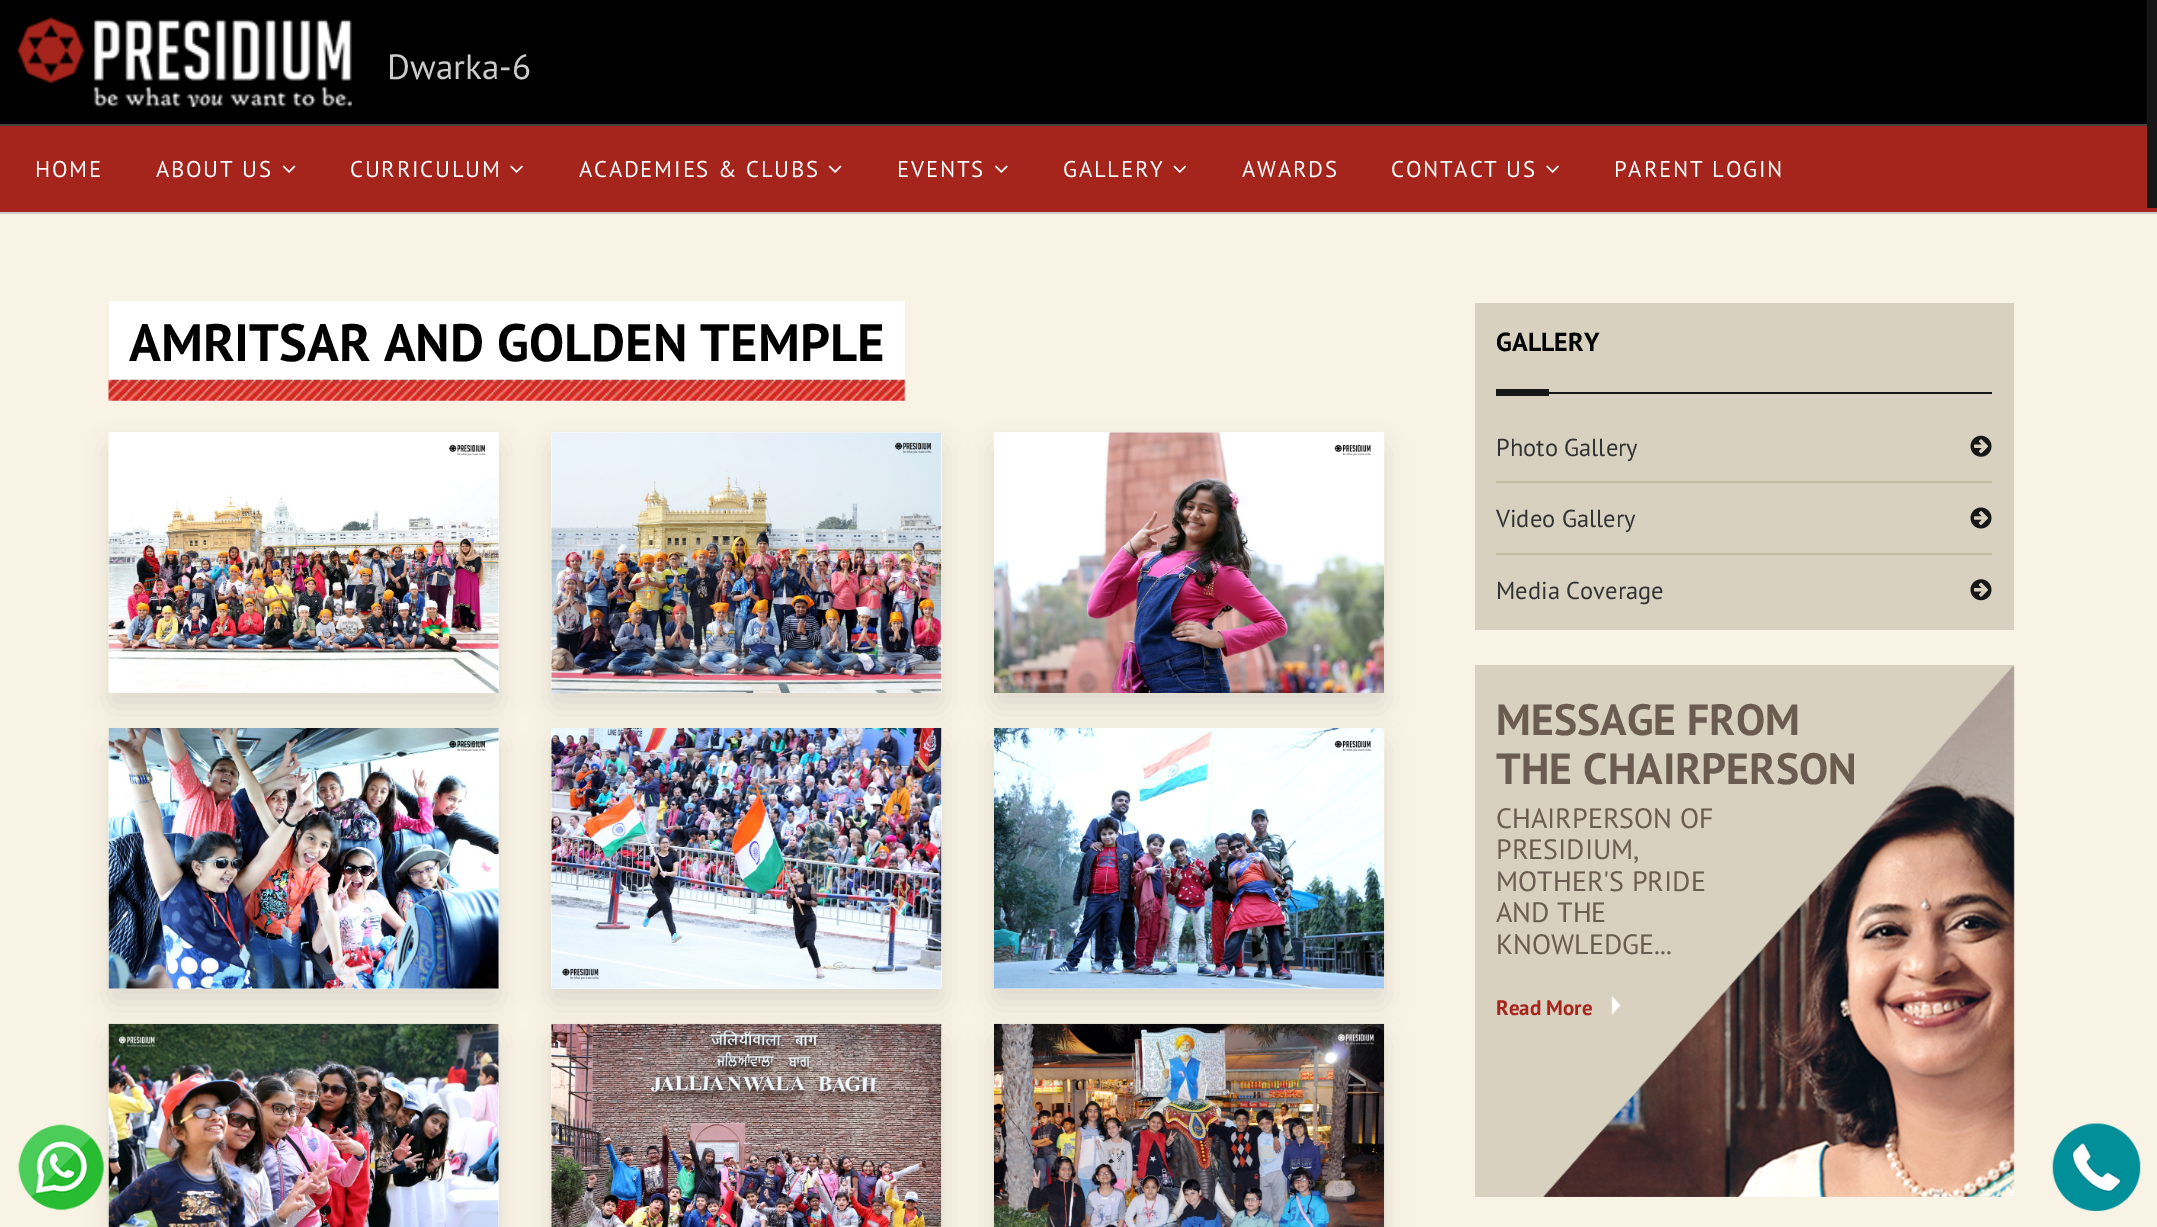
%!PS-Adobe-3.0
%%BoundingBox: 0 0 2157 1227
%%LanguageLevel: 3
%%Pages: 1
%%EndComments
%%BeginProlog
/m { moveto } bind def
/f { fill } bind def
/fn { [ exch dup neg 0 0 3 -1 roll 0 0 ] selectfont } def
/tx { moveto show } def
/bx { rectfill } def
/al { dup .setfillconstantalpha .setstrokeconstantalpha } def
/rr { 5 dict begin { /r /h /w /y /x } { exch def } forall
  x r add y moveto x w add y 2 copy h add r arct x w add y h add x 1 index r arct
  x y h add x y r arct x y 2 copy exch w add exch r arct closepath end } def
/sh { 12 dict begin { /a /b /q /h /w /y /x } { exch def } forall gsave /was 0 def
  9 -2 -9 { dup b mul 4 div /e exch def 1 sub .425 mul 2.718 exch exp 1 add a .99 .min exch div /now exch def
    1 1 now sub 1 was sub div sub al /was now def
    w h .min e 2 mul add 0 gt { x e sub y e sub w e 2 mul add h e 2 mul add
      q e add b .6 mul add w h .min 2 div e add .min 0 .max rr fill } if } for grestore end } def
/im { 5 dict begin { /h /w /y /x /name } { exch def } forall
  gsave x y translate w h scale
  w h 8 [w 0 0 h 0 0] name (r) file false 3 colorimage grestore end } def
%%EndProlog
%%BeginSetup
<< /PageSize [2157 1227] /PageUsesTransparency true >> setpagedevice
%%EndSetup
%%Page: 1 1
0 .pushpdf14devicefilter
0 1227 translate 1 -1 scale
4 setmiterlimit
0.976 0.953 0.898 setrgbcolor
0 0 2157 1227 bx
0 setgray
0 0 2147 124 bx
0.259 setgray
0 124 2147 2 bx
(image0.raw) 17 17 335 90 im
/PTSans-Regular 35 fn
0.8 setgray
(Dwarka-6) 387 79 tx
0.647 0.141 0.11 setrgbcolor
0 126 2157 86 bx
0.8 setgray
0 212 2157 2 bx
/PTSans-Regular 22.75 fn
1 setgray
35 177 m 1.75 0 (HOME) ashow
156 177 m 1.75 0 (ABOUT US) ashow
(image1.raw) 282 165 14 8 im
350 177 m 1.75 0 (CURRICULUM) ashow
(image2.raw) 510 165 13 8 im
579 177 m 1.75 0 (ACADEMIES & CLUBS) ashow
(image1.raw) 828 165 14 8 im
897 177 m 1.75 0 (EVENTS) ashow
(image3.raw) 995 165 13 8 im
1063 177 m 1.75 0 (GALLERY) ashow
(image4.raw) 1173 165 14 8 im
1242 177 m 1.75 0 (AWARDS) ashow
1391 177 m 1.75 0 (CONTACT US) ashow
(image2.raw) 1546 165 13 8 im
1614 177 m 1.75 0 (PARENT LOGIN) ashow
109 301 796 100 bx
(image5.raw) 108 379 797 22 im
/PTSans-Bold 52.5 fn
0 setgray
(AMRITSAR AND GOLDEN TEMPLE) 129 361 tx
109 446 390 261 4 13 0.1 sh
1 setgray
109 432 390 261 4 rr f
(image6.raw) 108 432 391 261 im
0 setgray
551 446 391 261 4 13 0.1 sh
1 setgray
551 432 391 261 4 rr f
(image7.raw) 551 432 391 261 im
0 setgray
994 446 390 261 4 13 0.1 sh
1 setgray
994 432 390 261 4 rr f
(image8.raw) 994 432 391 261 im
0 setgray
109 742 390 261 4 13 0.1 sh
1 setgray
109 728 390 261 4 rr f
(image9.raw) 108 728 391 261 im
0 setgray
551 742 391 261 4 13 0.1 sh
1 setgray
551 728 391 261 4 rr f
(image10.raw) 551 728 391 261 im
0 setgray
994 742 390 261 4 13 0.1 sh
1 setgray
994 728 390 261 4 rr f
(image11.raw) 994 728 391 261 im
0 setgray
109 1038 390 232 4 13 0.1 sh
1 setgray
109 1024 390 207 4 rr f
(image12.raw) 108 1023 391 204 im
0 setgray
551 1038 391 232 4 13 0.1 sh
1 setgray
551 1024 391 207 4 rr f
(image13.raw) 551 1023 391 204 im
0 setgray
994 1038 390 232 4 13 0.1 sh
(image14.raw) 994 1023 391 204 im
0.847 0.82 0.749 setrgbcolor
1475 303 539 327 bx
/PTSans-Bold 26 fn
0 setgray
(GALLERY) 1496 351 tx
0.09 setgray
1496 389 53 7 bx
1549 392 443 2 bx
0.78 0.741 0.643 setrgbcolor
1496 481 496 2 bx
/PTSans-Regular 24.5 fn
0.2 setgray
(Photo Gallery) 1496 456 tx
(image15.raw) 1970 435 22 22 im
0.78 0.741 0.643 setrgbcolor
1496 553 496 2 bx
0.2 setgray
(Video Gallery) 1496 527 tx
(image16.raw) 1970 507 22 22 im
(Media Coverage) 1496 599 tx
(image17.raw) 1970 579 22 22 im
0.847 0.82 0.749 setrgbcolor
1475 665 539 532 bx
(image18.raw) 1543 666 472 531 im
/PTSans-Bold 43.75 fn
0.416 0.361 0.314 setrgbcolor
(MESSAGE FROM) 1496 735 tx
(THE CHAIRPERSON) 1496 784 tx
/PTSans-Regular 28 fn
(CHAIRPERSON OF) 1496 828 tx
(PRESIDIUM,) 1496 859 tx
(MOTHER'S PRIDE) 1496 891 tx
(AND THE) 1496 922 tx
(KNOWLEDGE...) 1496 954 tx
(image19.raw) 1611 996 10 19 im
/PTSans-Bold 21 fn
0.647 0.141 0.11 setrgbcolor
(Read More) 1496 1015 tx
(image20.raw) 18 1124 87 87 im
(image21.raw) 2052 1123 89 88 im
0.09 setgray
2147 0 10 208 bx
.poppdf14devicefilter showpage
%%EOF
